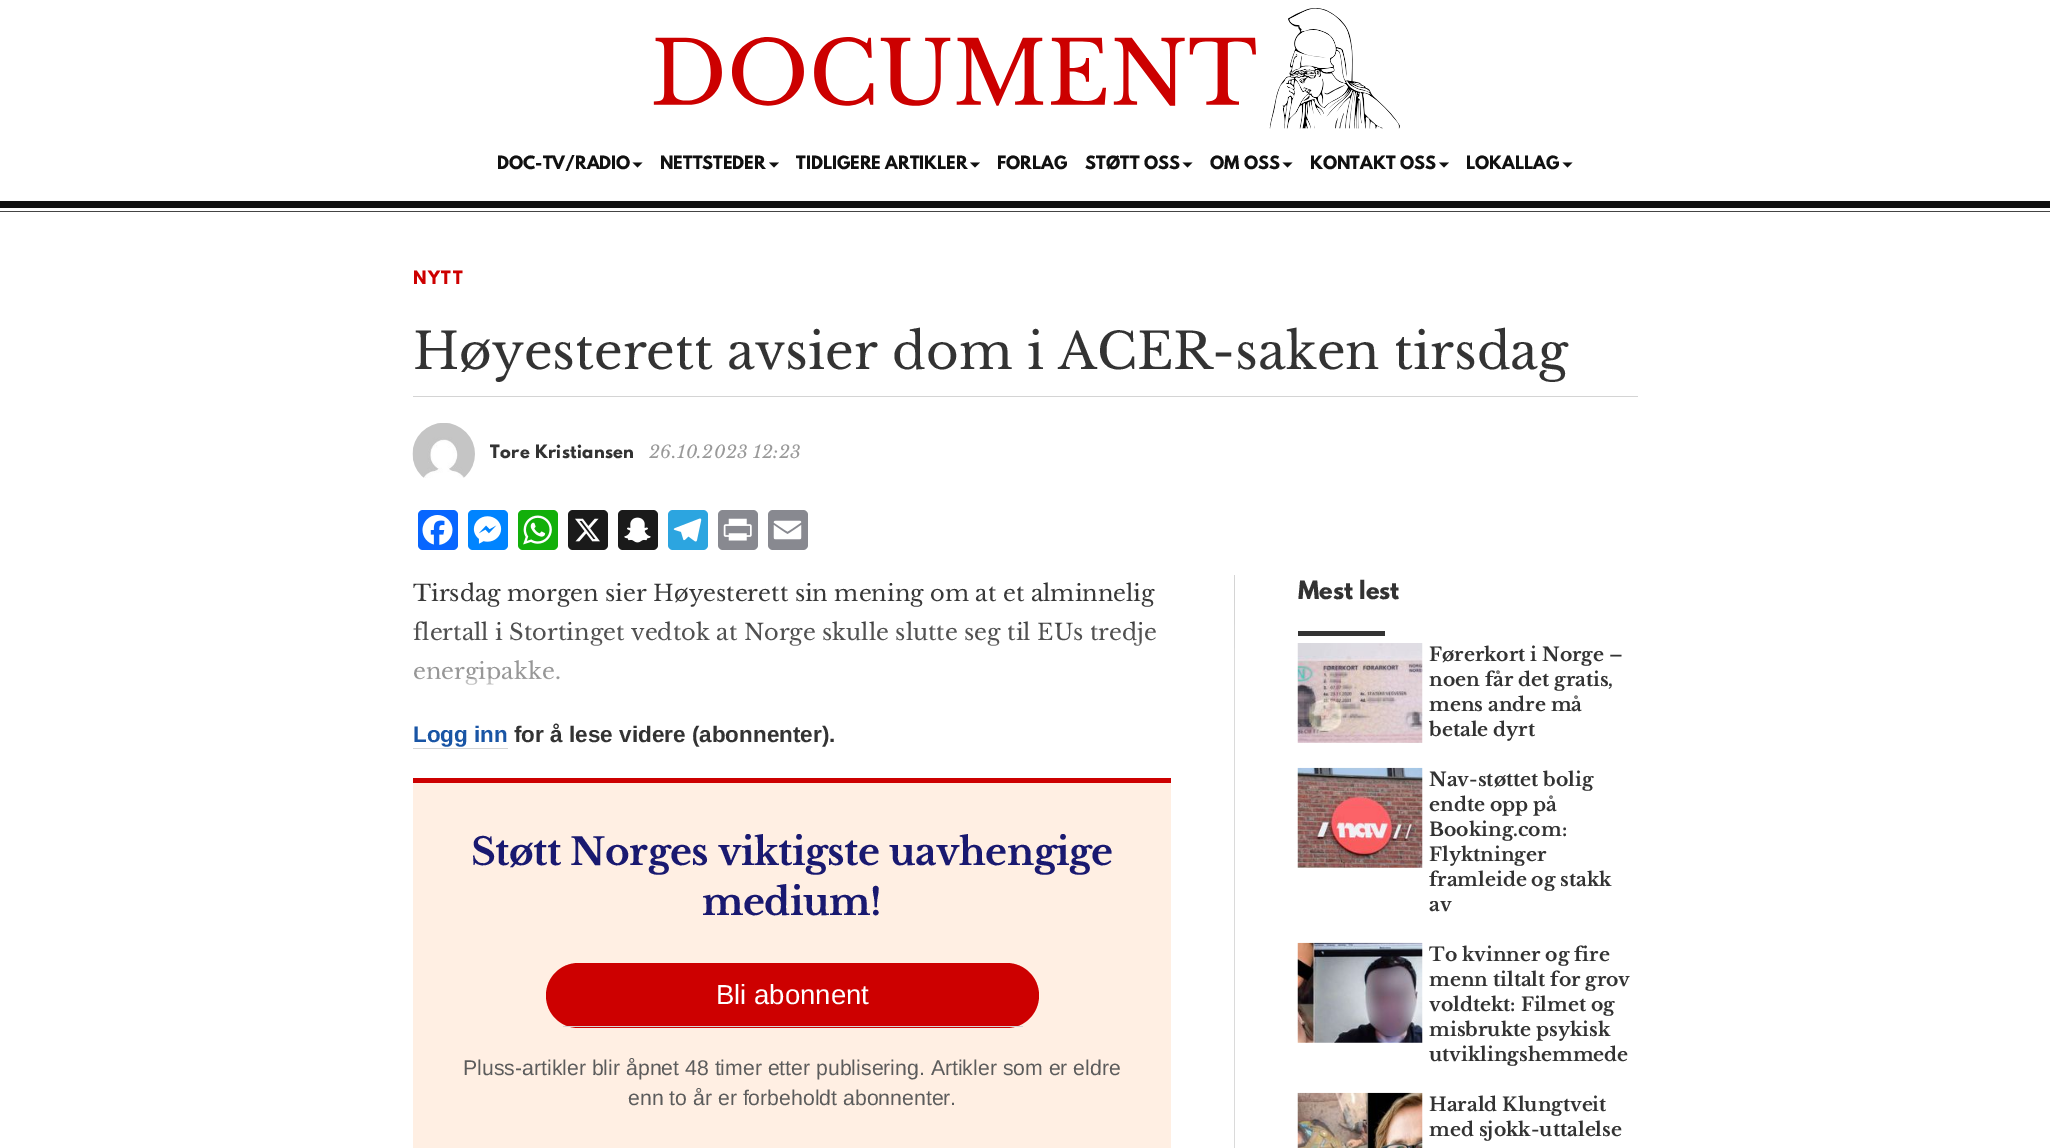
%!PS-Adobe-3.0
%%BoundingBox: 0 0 2050 1148
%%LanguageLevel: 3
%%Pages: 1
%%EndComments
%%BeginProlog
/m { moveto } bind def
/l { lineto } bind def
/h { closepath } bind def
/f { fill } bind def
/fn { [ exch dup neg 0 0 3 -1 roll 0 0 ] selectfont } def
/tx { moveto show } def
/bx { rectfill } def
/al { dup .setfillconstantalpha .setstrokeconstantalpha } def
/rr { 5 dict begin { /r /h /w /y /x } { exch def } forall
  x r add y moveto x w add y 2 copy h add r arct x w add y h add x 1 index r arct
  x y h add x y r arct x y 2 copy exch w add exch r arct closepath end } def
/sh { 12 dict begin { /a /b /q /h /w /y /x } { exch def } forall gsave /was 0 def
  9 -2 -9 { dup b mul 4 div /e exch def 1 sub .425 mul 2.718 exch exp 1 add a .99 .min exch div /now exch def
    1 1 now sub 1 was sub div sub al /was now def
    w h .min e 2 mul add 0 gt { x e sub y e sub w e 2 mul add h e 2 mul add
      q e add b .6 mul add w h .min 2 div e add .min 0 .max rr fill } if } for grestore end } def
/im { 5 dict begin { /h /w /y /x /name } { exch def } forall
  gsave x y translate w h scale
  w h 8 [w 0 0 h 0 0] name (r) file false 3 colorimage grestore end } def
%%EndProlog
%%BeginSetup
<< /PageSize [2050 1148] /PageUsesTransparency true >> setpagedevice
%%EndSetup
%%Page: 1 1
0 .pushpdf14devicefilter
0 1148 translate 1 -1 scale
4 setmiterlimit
1 setgray
0 0 2050 1148 bx
(image0.raw) 653 8 747 121 im
/LeagueSpartan-Bold 16.25 fn
0.067 setgray
(DOC-TV/RADIO) 497 169 tx
632.5 162.5 m 642.5 162.5 l 637.5 167.5 l h f
(NETTSTEDER) 660 169 tx
769 162.5 m 779 162.5 l 774 167.5 l h f
(TIDLIGERE ARTIKLER) 796 169 tx
970 162.5 m 980 162.5 l 975 167.5 l h f
(FORLAG) 997 169 tx
(STØTT OSS) 1085 169 tx
1182.5 162.5 m 1192.5 162.5 l 1187.5 167.5 l h f
(OM OSS) 1210 169 tx
1282.5 162.5 m 1292.5 162.5 l 1287.5 167.5 l h f
(KONTAKT OSS) 1310 169 tx
1439 162.5 m 1449 162.5 l 1444 167.5 l h f
(LOKALLAG) 1466 169 tx
1562.5 162.5 m 1572.5 162.5 l 1567.5 167.5 l h f
0 201 2050 7 bx
0.267 setgray
0 211 2050 1 bx
0.804 0 0 setrgbcolor
413 284 m 1.5 0 (NYTT) ashow
/LibreBaskerville-Regular 50 fn
0.2 setgray
(Høyesterett avsier dom i ACER-saken tirsdag) 413 369 tx
0.831 setgray
413 396 1225 1 bx
(image1.raw) 412 423 63 55 im
/LeagueSpartan-Bold 16.25 fn
0.2 setgray
490 458 m 0.4 0 (Tore Kristiansen) ashow
/LibreBaskerville-Italic 17.5 fn
0.6 setgray
649 458 m 0.4 0 (26.10.2023 12:23) ashow
0.031 0.4 1 setrgbcolor
418 510 40 40 5 rr f
(image2.raw) 422 515 31 30 im
0 0.518 1 setrgbcolor
468 510 40 40 5 rr f
(image3.raw) 473 516 29 28 im
0.071 0.686 0.039 setrgbcolor
518 510 40 40 5 rr f
(image4.raw) 523 515 29 30 im
0.102 setgray
568 510 40 40 5 rr f
(image5.raw) 575 518 25 24 im
618 510 40 40 5 rr f
(image6.raw) 624 517 27 26 im
0.173 0.647 0.878 setrgbcolor
668 510 40 40 5 rr f
(image7.raw) 673 518 29 24 im
0.533 0.537 0.565 setrgbcolor
718 510 40 40 5 rr f
(image8.raw) 723 518 29 23 im
768 510 40 40 5 rr f
(image9.raw) 773 520 29 20 im
0.831 setgray
1234 575 1 573 bx
/LibreBaskerville-Regular 22.5 fn
0.2 setgray
(Tirsdag morgen sier Høyesterett sin mening om at et alminnelig) 413 601 tx
(flertall i Stortinget vedtok at Norge skulle slutte seg til EUs tredje) 413 640 tx
(energipakke.) 413 679 tx
1298 631 87 5 bx
(image10.raw) 1297 643 126 100 im
(image11.raw) 1297 767 126 101 im
(image12.raw) 1297 942 126 101 im
(image13.raw) 1297 1092 126 56 im
1 setgray
378 670 828 463 0 35.5 1 sh
/LiberationSans-Bold 22.5 fn
0.098 0.333 0.647 setrgbcolor
(Logg inn) 413 742 tx
0.831 setgray
413 748 95 1 bx
0.2 setgray
(for å lese videre \(abonnenter\).) 514 742 tx
1 0.937 0.89 setrgbcolor
413 783 758 365 bx
0.804 0 0 setrgbcolor
413 778 758 5 bx
/LibreBaskerville-Bold 37.5 fn
0.098 0.098 0.439 setrgbcolor
471 865 m -0.5 0 (Støtt Norges viktigste uavhengige) ashow
702 915 m -0.5 0 (medium!) ashow
0.804 0 0 setrgbcolor
546 963 493 65 32.5 rr f
0.831 setgray
563 1026 460 1 bx
/LiberationSans-Regular 27.5 fn
1 setgray
(Bli abonnent) 716 1004 tx
/LiberationSans-Regular 21.25 fn
0.361 setgray
(Pluss-artikler blir åpnet 48 timer etter publisering. Artikler som er eldre) 463 1075 tx
(enn to år er forbeholdt abonnenter.) 628 1105 tx
/LeagueSpartan-Bold 22.5 fn
0.2 setgray
(Mest lest) 1298 599 tx
/LibreBaskerville-Bold 18.75 fn
(Førerkort i Norge –) 1429 661 tx
(noen får det gratis,) 1429 686 tx
(mens andre må) 1429 711 tx
(betale dyrt) 1429 736 tx
(Nav-støttet bolig) 1429 786 tx
(endte opp på) 1429 811 tx
(Booking.com:) 1429 836 tx
(Flyktninger) 1429 861 tx
(framleide og stakk) 1429 886 tx
(av) 1429 911 tx
(To kvinner og fire) 1429 961 tx
(menn tiltalt for grov) 1429 986 tx
(voldtekt: Filmet og) 1429 1011 tx
(misbrukte psykisk) 1429 1036 tx
(utviklingshemmede) 1429 1061 tx
(Harald Klungtveit) 1429 1111 tx
(med sjokk-uttalelse) 1429 1136 tx
.poppdf14devicefilter showpage
%%EOF
